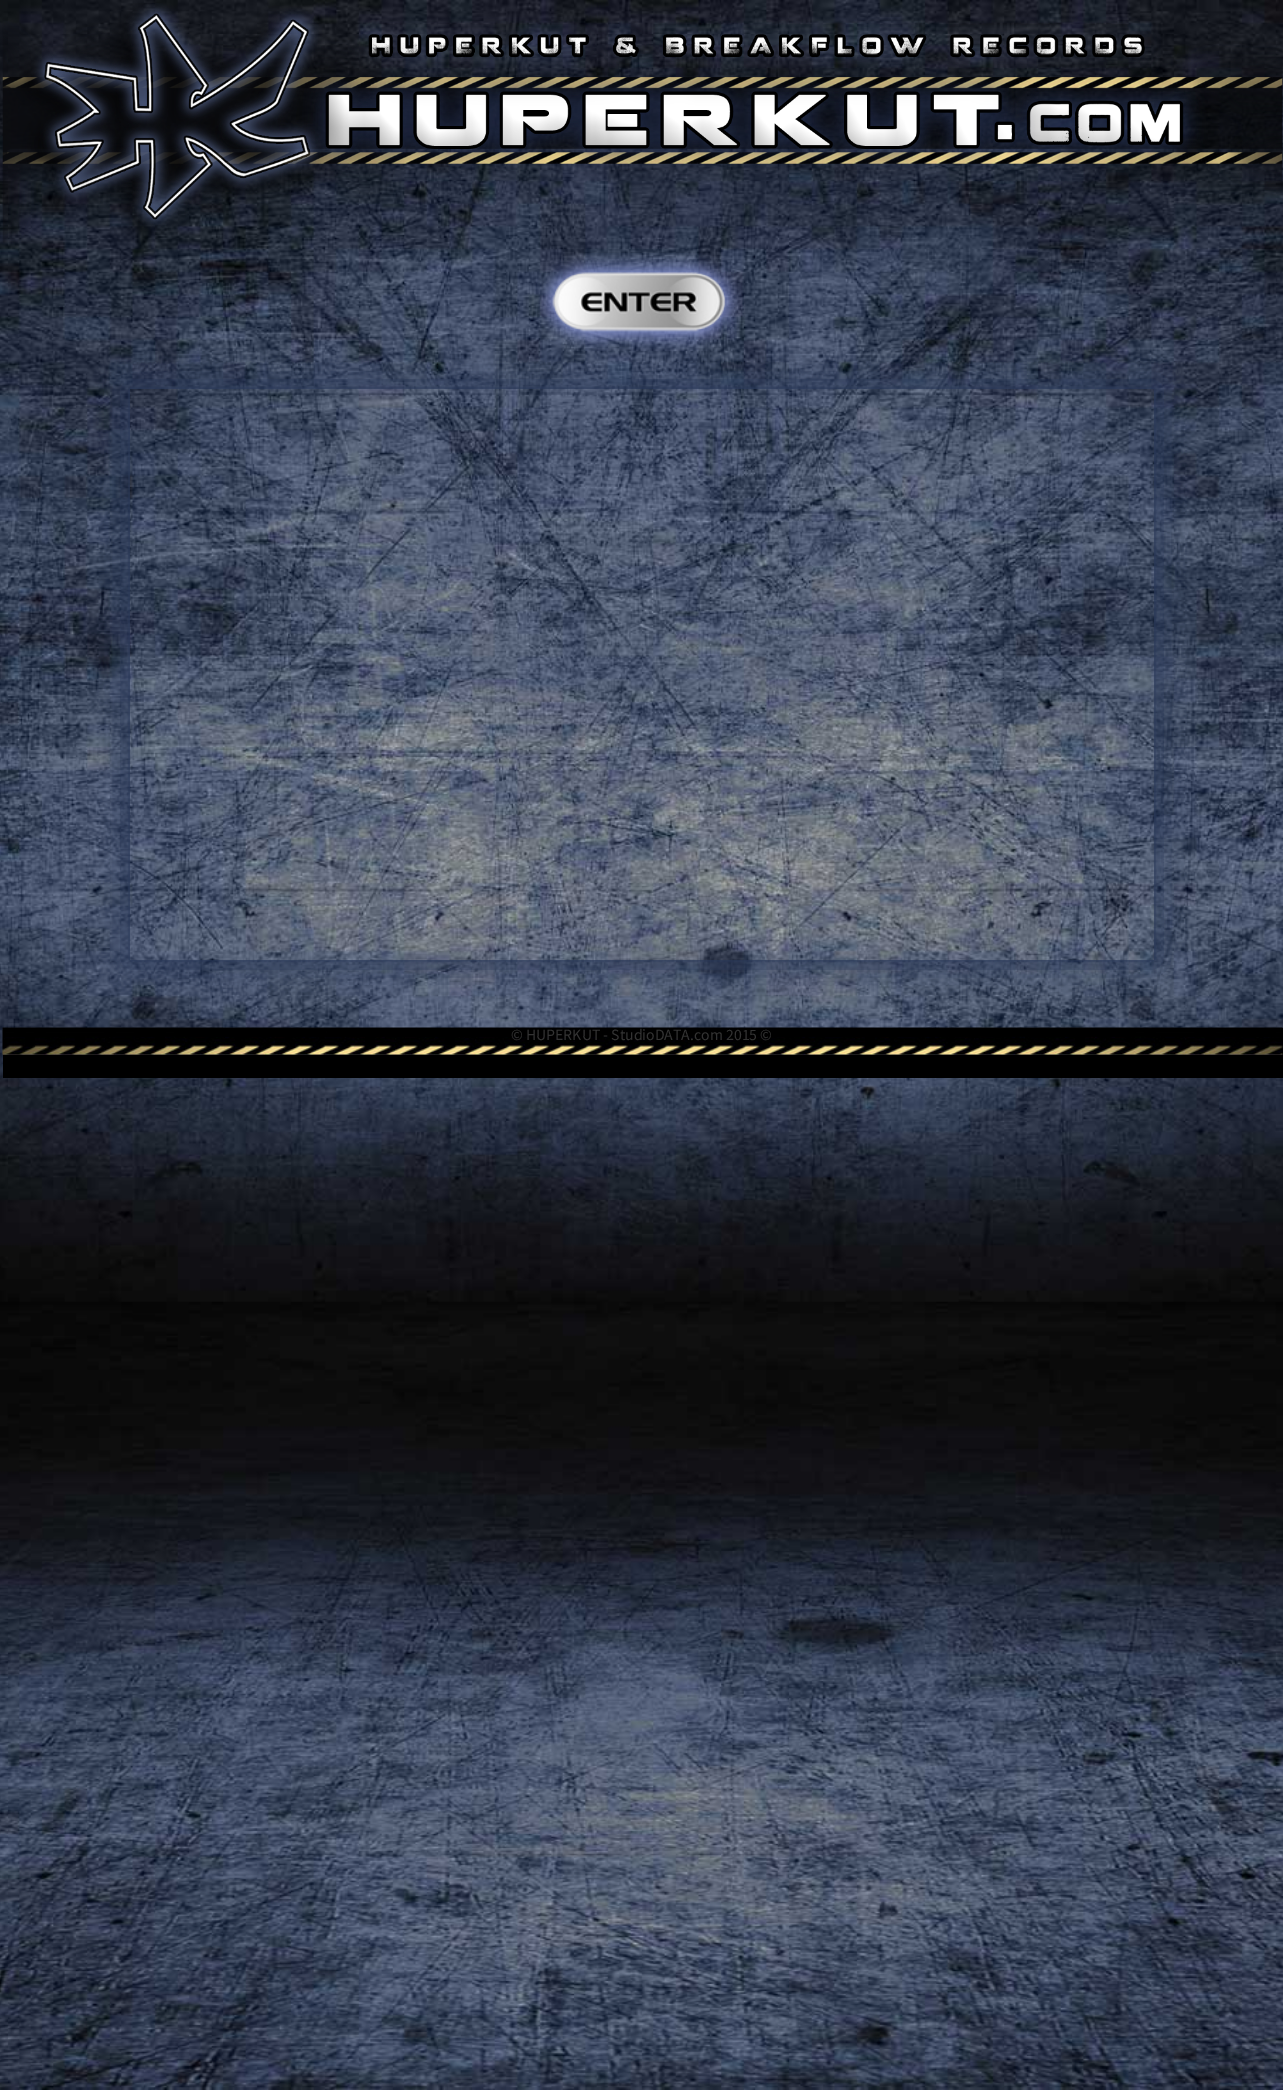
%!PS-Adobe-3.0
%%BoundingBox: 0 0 1283 2090
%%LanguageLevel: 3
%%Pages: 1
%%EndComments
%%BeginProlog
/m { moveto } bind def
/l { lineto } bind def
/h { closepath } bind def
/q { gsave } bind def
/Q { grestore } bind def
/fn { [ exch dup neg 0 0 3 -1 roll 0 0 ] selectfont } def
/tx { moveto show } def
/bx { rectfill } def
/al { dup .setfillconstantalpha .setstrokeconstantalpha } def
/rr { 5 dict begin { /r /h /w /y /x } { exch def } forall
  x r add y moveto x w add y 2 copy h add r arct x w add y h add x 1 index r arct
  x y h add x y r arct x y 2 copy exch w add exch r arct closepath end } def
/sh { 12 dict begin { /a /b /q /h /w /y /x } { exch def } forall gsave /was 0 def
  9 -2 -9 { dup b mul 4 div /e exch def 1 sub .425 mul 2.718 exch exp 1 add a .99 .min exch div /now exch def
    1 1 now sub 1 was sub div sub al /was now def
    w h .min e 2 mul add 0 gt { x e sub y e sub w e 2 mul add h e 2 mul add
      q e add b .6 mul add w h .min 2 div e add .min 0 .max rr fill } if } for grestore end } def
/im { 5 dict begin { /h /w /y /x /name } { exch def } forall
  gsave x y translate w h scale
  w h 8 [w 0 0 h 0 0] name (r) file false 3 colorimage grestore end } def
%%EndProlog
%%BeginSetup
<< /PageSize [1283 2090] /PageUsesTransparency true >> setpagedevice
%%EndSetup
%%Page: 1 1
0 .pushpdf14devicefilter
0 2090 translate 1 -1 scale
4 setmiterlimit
1 setgray
0 0 1283 2090 bx
(image0.raw) 0 0 1283 2090 im
(image1.raw) 2 3 1281 240 im
q
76 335 m 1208 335 l 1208 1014 l 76 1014 l h 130 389 m 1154 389 l 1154 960 l 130 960 l h eoclip newpath
0.161 0.22 0.345 setrgbcolor
124 383 1036 583 0 15.5 1 sh
Q
(image2.raw) 534 253 210 98 im
0 setgray
3 1028 1280 50 bx
(image3.raw) 2 1027 1281 28 im
/SourceSansPro-Regular 15.75 fn
0.2 setgray
(© HUPERKUT - StudioDATA.com 2015 ©) 511 1040 tx
.poppdf14devicefilter showpage
%%EOF
